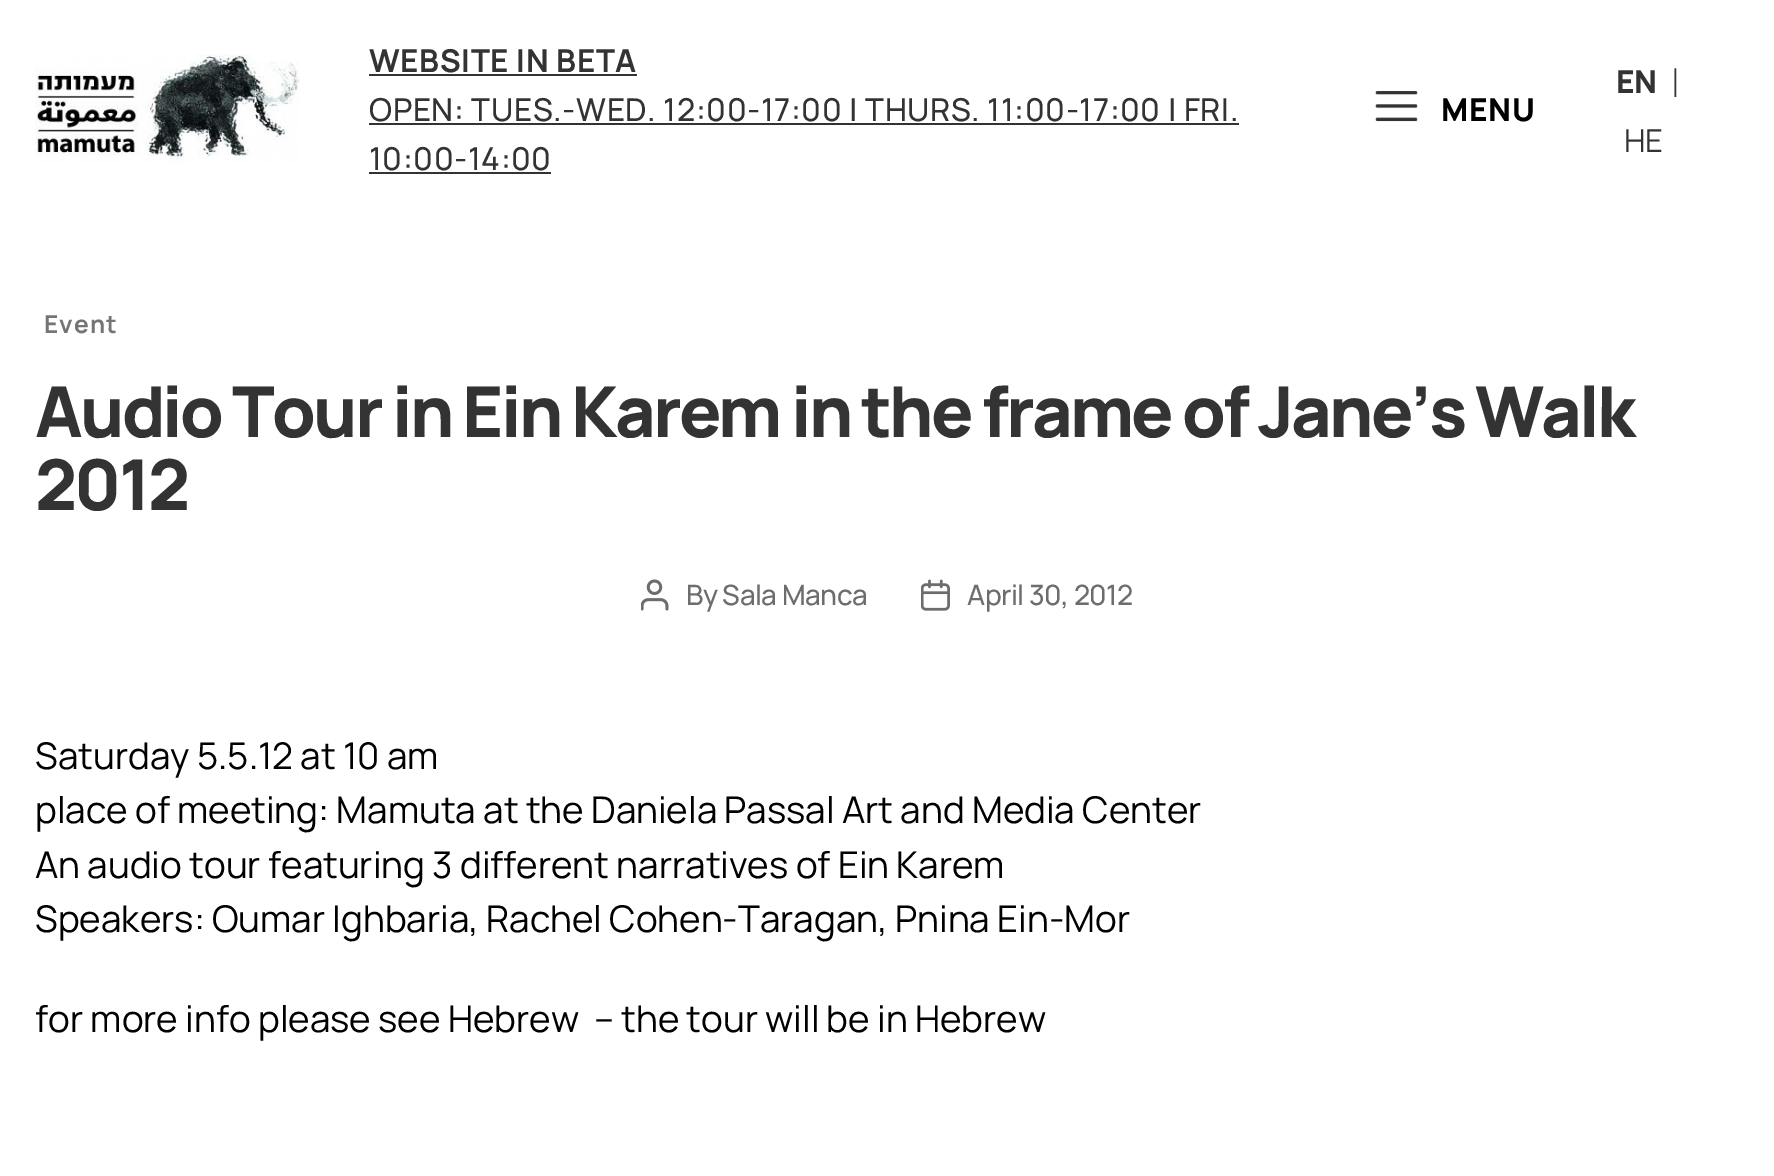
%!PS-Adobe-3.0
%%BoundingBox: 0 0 1774 1176
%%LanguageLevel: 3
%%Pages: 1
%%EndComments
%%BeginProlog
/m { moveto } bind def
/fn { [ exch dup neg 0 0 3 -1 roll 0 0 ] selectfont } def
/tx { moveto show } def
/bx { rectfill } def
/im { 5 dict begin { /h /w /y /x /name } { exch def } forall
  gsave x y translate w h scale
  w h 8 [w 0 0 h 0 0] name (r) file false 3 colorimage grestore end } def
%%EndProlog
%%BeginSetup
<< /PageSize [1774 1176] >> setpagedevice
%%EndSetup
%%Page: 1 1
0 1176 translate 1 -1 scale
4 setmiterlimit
1 setgray
0 0 1774 1176 bx
(image0.raw) 35 54 265 109 im
/Manrope-Bold 31.5 fn
0.2 setgray
369 72 m 0.63 0 (WEBSITE IN BETA) ashow
369 74 268 2 bx
/Manrope-Medium 31.5 fn
369 121 m 0.63 0 (OPEN: TUES.-WED. 12:00-17:00 | THURS. 11:00-17:00 | FRI.) ashow
369 123 870 2 bx
369 170 m 0.63 0 (10:00-14:00) ashow
369 172 182 2 bx
(image1.raw) 1375 91 43 31 im
/Manrope-ExtraBold 31.5 fn
0 setgray
1441 121 m 0.63 0 (MENU) ashow
0.2 setgray
1616 93 m -0.5 0 (EN) ashow
/Manrope-ExtraLight 40 fn
1671 97 m -0.5 0 (|) ashow
/Manrope-Regular 31.5 fn
1624 152 m -0.5 0 (HE) ashow
/Manrope-Bold 24.5 fn
0.459 setgray
44 333 m 1 0 (Event) ashow
/Manrope-ExtraBold 70 fn
0.2 setgray
35 437 m -2.9 0 (Audio Tour in Ein Karem in the frame of Jane’s Walk) ashow
35 510 m -2.9 0 (2012) ashow
(image2.raw) 641 579 28 32 im
/Manrope-Medium 28 fn
0.427 setgray
686 605 m -0.5 0 (By Sala Manca) ashow
(image3.raw) 921 579 29 32 im
967 605 m -0.5 0 (April 30, 2012) ashow
/Manrope-Regular 36.75 fn
0 setgray
(Saturday 5.5.12 at 10 am) 35 769 tx
(place of meeting: Mamuta at the Daniela Passal Art and Media Center) 35 823 tx
(An audio tour featuring 3 different narratives of Ein Karem) 35 878 tx
(Speakers: Oumar Ighbaria, Rachel Cohen-Taragan, Pnina Ein-Mor) 35 932 tx
(for more info please see Hebrew  – the tour will be in Hebrew) 35 1032 tx
showpage
%%EOF
